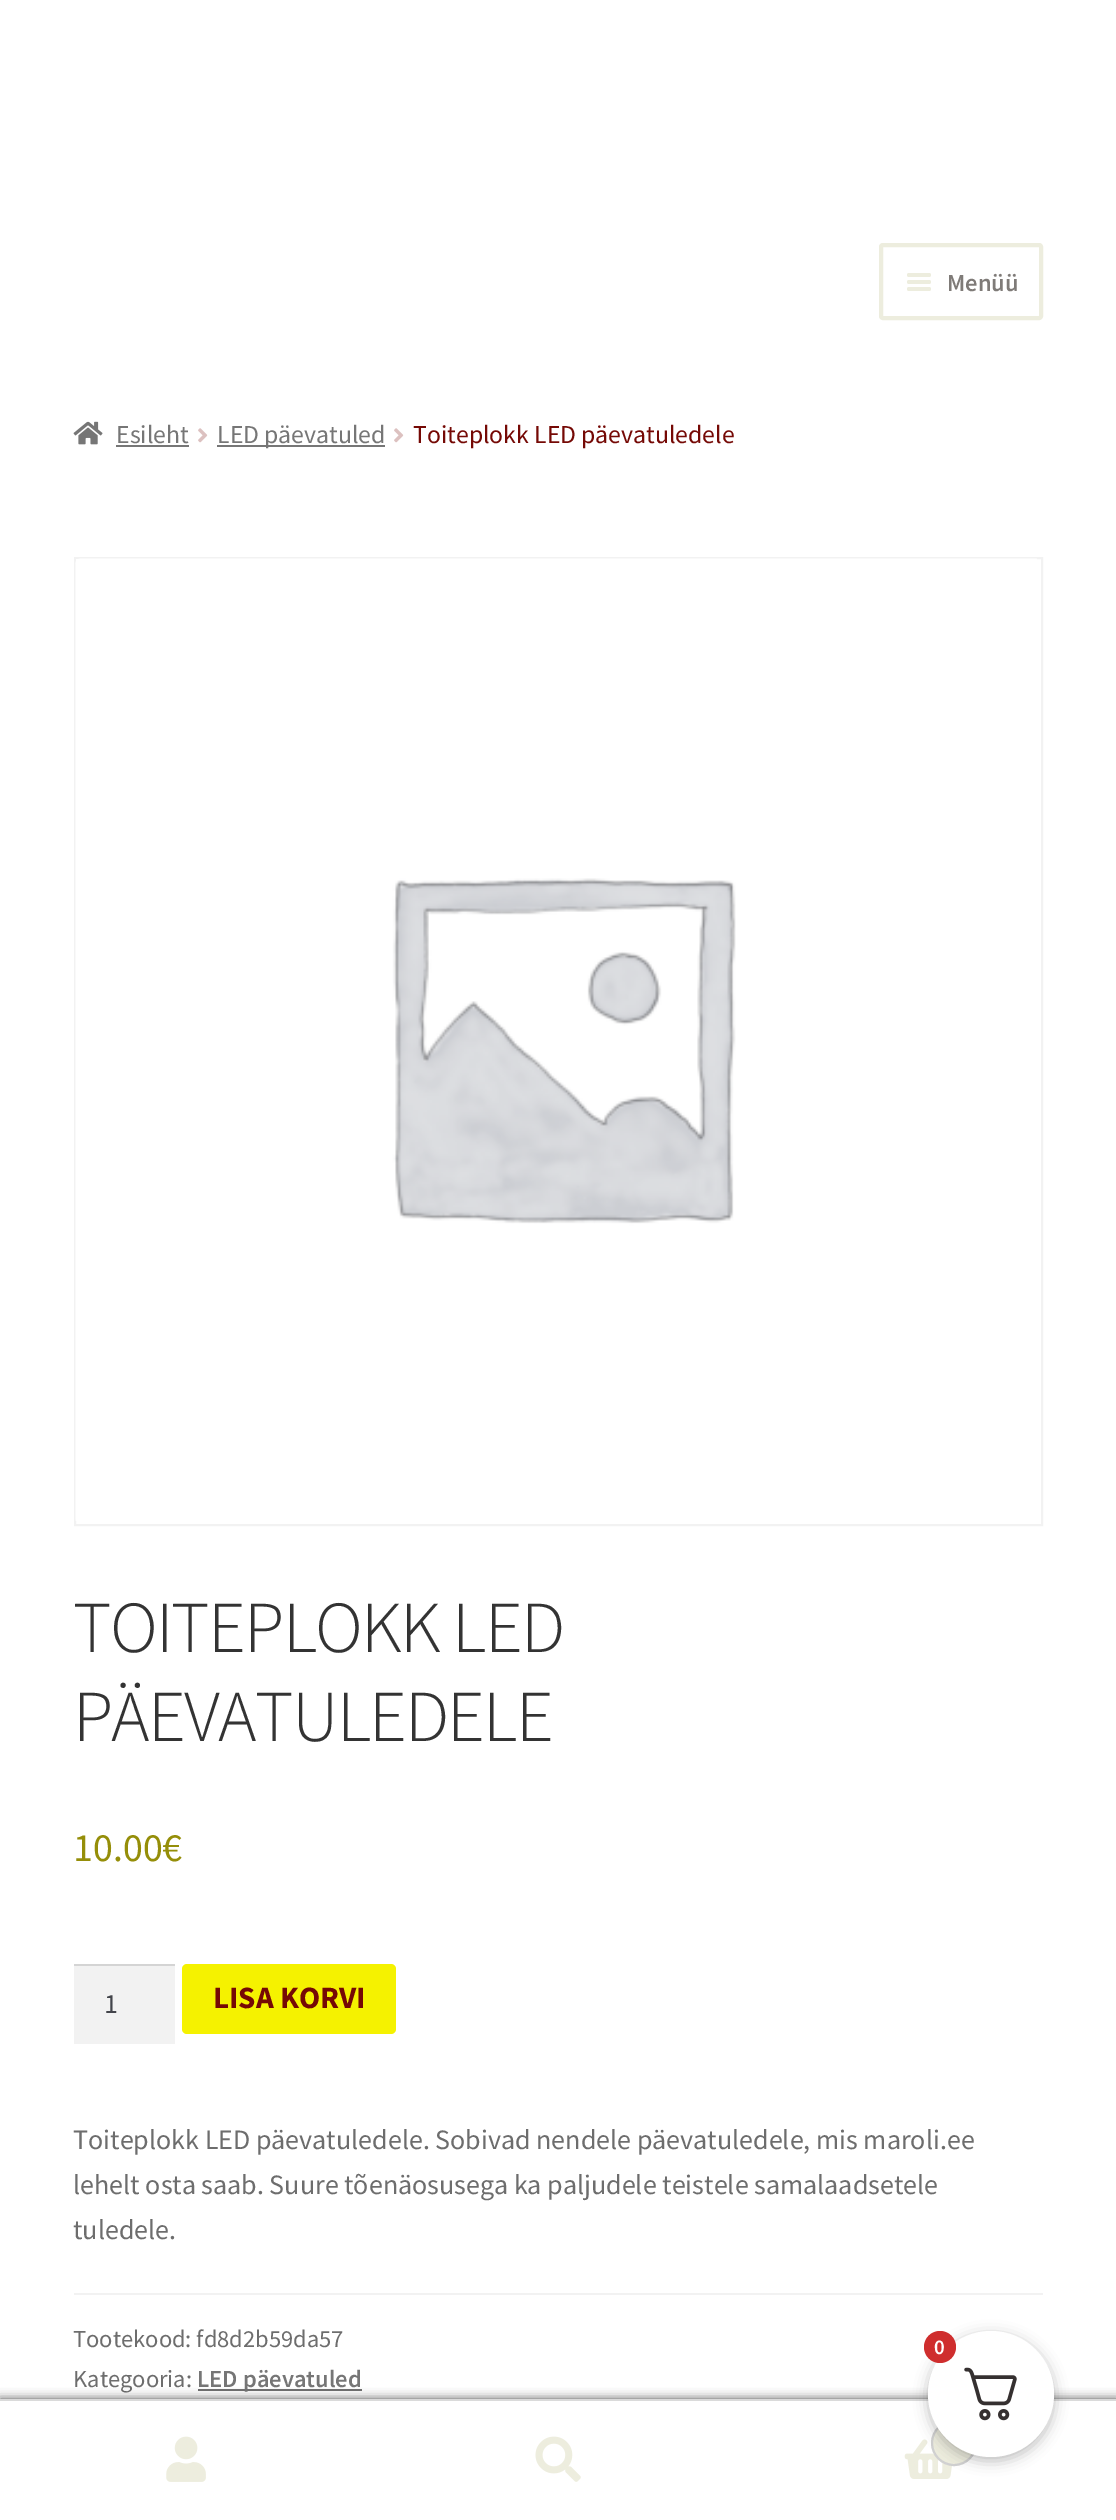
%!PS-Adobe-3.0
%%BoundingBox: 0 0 1116 2520
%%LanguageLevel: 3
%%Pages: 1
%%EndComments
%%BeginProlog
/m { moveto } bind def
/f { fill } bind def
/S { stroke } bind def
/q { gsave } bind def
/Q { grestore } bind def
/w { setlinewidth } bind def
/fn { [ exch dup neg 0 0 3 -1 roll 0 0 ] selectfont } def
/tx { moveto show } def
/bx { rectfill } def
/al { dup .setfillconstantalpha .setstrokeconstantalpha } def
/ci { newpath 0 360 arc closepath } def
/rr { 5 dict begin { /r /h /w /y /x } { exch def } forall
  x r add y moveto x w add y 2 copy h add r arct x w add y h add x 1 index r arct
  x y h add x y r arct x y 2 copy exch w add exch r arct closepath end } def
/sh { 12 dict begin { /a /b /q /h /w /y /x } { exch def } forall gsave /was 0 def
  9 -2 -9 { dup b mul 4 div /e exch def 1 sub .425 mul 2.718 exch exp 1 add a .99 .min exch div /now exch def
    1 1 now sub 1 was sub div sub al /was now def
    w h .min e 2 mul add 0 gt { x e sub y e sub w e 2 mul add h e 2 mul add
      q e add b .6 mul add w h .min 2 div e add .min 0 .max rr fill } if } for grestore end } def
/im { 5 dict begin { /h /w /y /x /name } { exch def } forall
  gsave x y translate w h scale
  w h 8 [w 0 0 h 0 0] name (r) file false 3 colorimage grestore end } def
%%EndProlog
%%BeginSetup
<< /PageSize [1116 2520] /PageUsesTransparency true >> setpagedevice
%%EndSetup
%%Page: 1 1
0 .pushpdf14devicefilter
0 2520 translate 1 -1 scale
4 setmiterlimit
1 setgray
0 0 1116 2520 bx
0.929 0.929 0.871 setrgbcolor
4 w
881 245 160 73 2 rr S
907 273 24 4 2 rr f
907 280 24 4 2 rr f
/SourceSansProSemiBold-SemiBold 24.5 fn
0.498 0.482 0.471 setrgbcolor
(Menüü) 947 291 tx
0.929 0.929 0.871 setrgbcolor
907 287 24 4 2 rr f
(image0.raw) 73 421 30 24 im
/SourceSansPro-Regular 25.75 fn
0.463 setgray
(Esileht) 116 443 tx
116 445 73 2 bx
(image1.raw) 198 428 10 15 im
217 445 168 2 bx
(LED päevatuled) 217 443 tx
(image1.raw) 394 428 10 15 im
0.459 0.035 0.02 setrgbcolor
(Toiteplokk LED päevatuledele) 413 443 tx
0.949 setgray
2 w
75 558 967 967 rectstroke
(image2.raw) 75 558 962 963 im
/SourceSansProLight-Light 73.25 fn
0.2 setgray
73 1652 m -1.75 0 (TOITEPLOKK LED) ashow
73 1741 m -1.75 0 (PÄEVATULEDELE) ashow
/SourceSansPro-Regular 40 fn
0.584 0.557 0.035 setrgbcolor
(10.00€) 73 1861 tx
0.949 setgray
74 1966 101 78 bx
0.831 setgray
74 1964 101 2 bx
/SourceSansPro-Regular 28 fn
0.263 0.271 0.294 setrgbcolor
(1) 104 2013 tx
0.961 0.949 0 setrgbcolor
182 1964 214 70 5 rr f
/SourceSansPro-Bold 31 fn
0.459 0.035 0.02 setrgbcolor
(LISA KORVI) 213 2008 tx
/SourceSansPro-Regular 28 fn
0.427 setgray
(Toiteplokk LED päevatuledele. Sobivad nendele päevatuledele, mis maroli.ee) 73 2149 tx
(lehelt osta saab. Suure tõenäosusega ka paljudele teistele samalaadsetele) 73 2194 tx
(tuledele.) 73 2239 tx
0.949 setgray
74 2293 969 2 bx
/SourceSansPro-Regular 24.5 fn
0.427 setgray
(Tootekood: fd8d2b59da57) 73 2347 tx
(Kategooria:) 73 2387 tx
0.447 setgray
198 2389 164 2 bx
/SourceSansProSemiBold-SemiBold 24.5 fn
0.463 setgray
(LED päevatuled) 197 2387 tx
0 setgray
0 2399 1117 121 0 5 0.7 sh
0.855 setgray
0 2399 1116 2 bx
1 setgray
0 2401 1116 119 bx
(image3.raw) 166 2436 40 46 im
(image4.raw) 535 2436 46 46 im
(image5.raw) 904 2439 48 40 im
0.929 0.929 0.871 setrgbcolor
954 2443 22 ci q f Q
0.82 setgray
S
0 setgray
928 2335 126 126 63 7 0.25 sh
1 setgray
991 2394 63 ci f
(image6.raw) 964 2367 53 54 im
0.812 0.18 0.18 setrgbcolor
940 2347 16 ci f
/SourceSansProSemiBold-SemiBold 21 fn
1 setgray
(0) 934 2354 tx
.poppdf14devicefilter showpage
%%EOF
